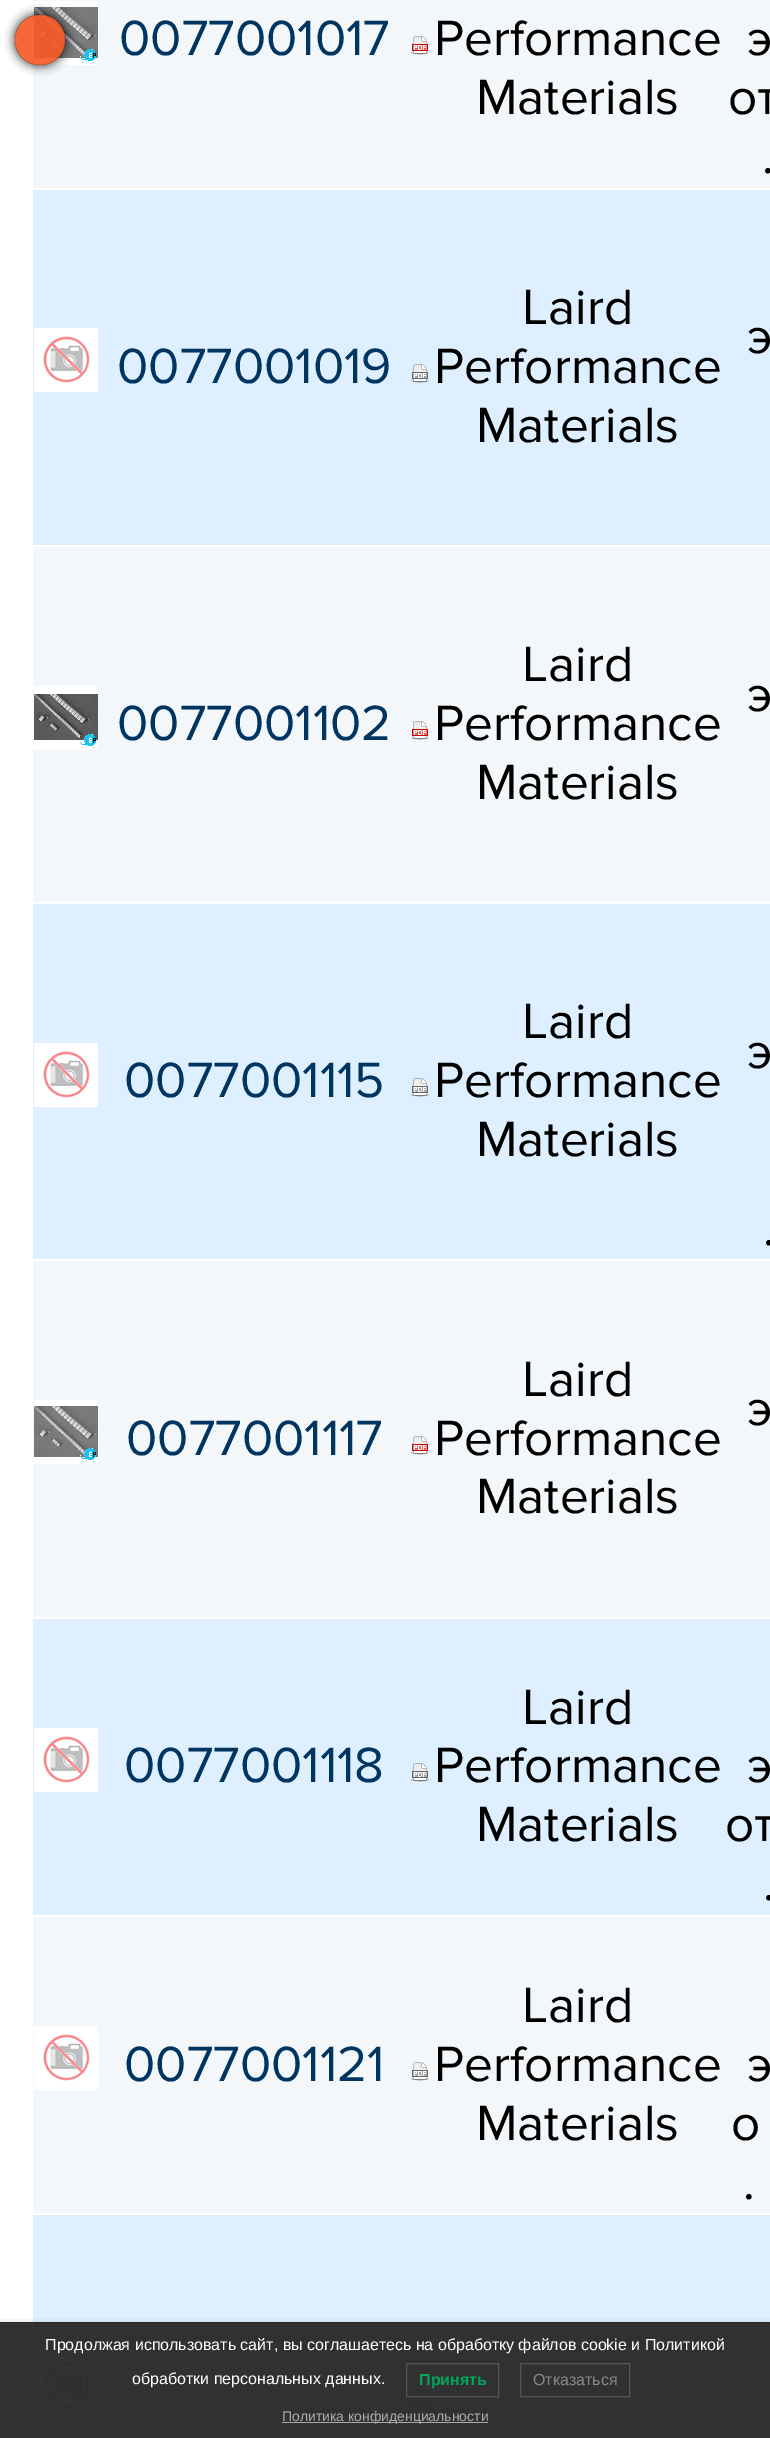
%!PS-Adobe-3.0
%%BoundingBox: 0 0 770 2438
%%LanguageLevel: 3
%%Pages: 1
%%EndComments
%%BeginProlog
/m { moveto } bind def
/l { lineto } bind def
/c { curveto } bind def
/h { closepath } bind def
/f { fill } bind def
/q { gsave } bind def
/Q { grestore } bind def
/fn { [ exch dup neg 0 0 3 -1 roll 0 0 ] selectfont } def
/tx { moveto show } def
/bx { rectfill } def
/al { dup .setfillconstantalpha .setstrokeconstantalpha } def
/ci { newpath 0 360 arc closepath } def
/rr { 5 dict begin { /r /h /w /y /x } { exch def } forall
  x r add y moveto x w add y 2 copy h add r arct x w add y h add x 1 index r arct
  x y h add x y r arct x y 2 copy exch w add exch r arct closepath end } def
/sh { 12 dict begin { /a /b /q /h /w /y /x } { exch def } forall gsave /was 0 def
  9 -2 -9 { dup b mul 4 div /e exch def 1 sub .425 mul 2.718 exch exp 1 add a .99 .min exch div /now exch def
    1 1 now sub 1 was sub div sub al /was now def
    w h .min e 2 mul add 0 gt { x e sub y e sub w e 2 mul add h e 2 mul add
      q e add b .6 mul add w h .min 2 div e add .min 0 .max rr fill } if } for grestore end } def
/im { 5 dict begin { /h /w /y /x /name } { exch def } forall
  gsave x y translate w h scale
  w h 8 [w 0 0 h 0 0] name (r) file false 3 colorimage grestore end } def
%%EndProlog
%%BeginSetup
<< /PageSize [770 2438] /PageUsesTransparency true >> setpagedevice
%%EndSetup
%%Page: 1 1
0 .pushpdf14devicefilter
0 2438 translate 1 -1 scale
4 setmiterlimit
1 setgray
0 0 770 2438 bx
0.953 0.969 0.976 setrgbcolor
33 0 737 188 bx
(image0.raw) 34 1 64 64 im
q
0 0 m 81 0 l 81 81 l 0 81 l h 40 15 m 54 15 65 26 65 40 c 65 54 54 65 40 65 c 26 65 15 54 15 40 c 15 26 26 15 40 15 c h eoclip newpath
0 setgray
15 15 50 50 25 5 0.52 sh
Q
0.7 al
0.965 0.345 0.149 setrgbcolor
40 40 25 ci f
q
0 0 m 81 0 l 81 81 l 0 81 l h 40 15 m 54 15 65 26 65 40 c 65 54 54 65 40 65 c 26 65 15 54 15 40 c 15 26 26 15 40 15 c h eoclip newpath
1 al
0 setgray
15 15 50 50 25 5 0.52 sh
Q
40 40 25 ci f
/ProximaNova-Regular 51.25 fn
1 al
0 0.208 0.38 setrgbcolor
(0077001017) 119 55 tx
(image1.raw) 411 36 18 19 im
0 setgray
(Performance) 434 55 tx
(Materials) 476 114 tx
(э) 747 55 tx
(от) 728 114 tx
(.) 762 173 tx
0.871 0.941 1 setrgbcolor
33 190 737 355 bx
(image2.raw) 34 328 64 64 im
0 0.208 0.38 setrgbcolor
(0077001019) 117 383 tx
(image3.raw) 411 364 18 19 im
0 setgray
(Laird) 522 324 tx
(Performance) 434 383 tx
(Materials) 476 442 tx
(э) 747 353 tx
0.953 0.969 0.976 setrgbcolor
33 547 737 355 bx
(image4.raw) 34 686 64 64 im
0 0.208 0.38 setrgbcolor
(0077001102) 117 740 tx
(image1.raw) 411 721 18 19 im
0 setgray
(Laird) 522 681 tx
(Performance) 434 740 tx
(Materials) 476 799 tx
(э) 747 711 tx
0.871 0.941 1 setrgbcolor
33 904 737 355 bx
(image2.raw) 34 1043 64 64 im
0 0.208 0.38 setrgbcolor
(0077001115) 124 1097 tx
(image3.raw) 411 1078 18 19 im
0 setgray
(Laird) 522 1038 tx
(Performance) 434 1097 tx
(Materials) 476 1156 tx
(э) 747 1068 tx
(.) 763 1245 tx
0.953 0.969 0.976 setrgbcolor
33 1261 737 356 bx
(image0.raw) 34 1400 64 64 im
0 0.208 0.38 setrgbcolor
(0077001117) 126 1455 tx
(image1.raw) 411 1436 18 19 im
0 setgray
(Laird) 522 1396 tx
(Performance) 434 1455 tx
(Materials) 476 1513 tx
(э) 747 1425 tx
0.871 0.941 1 setrgbcolor
33 1619 737 296 bx
(image2.raw) 34 1728 64 64 im
0 0.208 0.38 setrgbcolor
(0077001118) 124 1782 tx
(image3.raw) 411 1763 18 19 im
0 setgray
(Laird) 522 1724 tx
(Performance) 434 1782 tx
(Materials) 476 1841 tx
(э) 747 1782 tx
(от) 725 1841 tx
(.) 763 1900 tx
0.953 0.969 0.976 setrgbcolor
33 1917 737 296 bx
(image2.raw) 34 2026 64 64 im
0 0.208 0.38 setrgbcolor
(0077001121) 124 2081 tx
(image5.raw) 411 2062 18 19 im
0 setgray
(Laird) 522 2022 tx
(Performance) 434 2081 tx
(Materials) 476 2140 tx
(э) 747 2081 tx
(о) 731 2140 tx
(.) 743 2199 tx
0.871 0.941 1 setrgbcolor
33 2215 737 223 bx
(image2.raw) 34 2354 64 64 im
(image3.raw) 411 2390 18 19 im
q
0 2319 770 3 rectclip
0 setgray
0 2322 770 116 0 4 0.1 sh
Q
0.97 al
0.169 setgray
0 2323 770 115 bx
1 al
0 2322 770 1 bx
/LiberationSans-Regular 16 fn
1 setgray
(Продолжая использовать сайт, вы соглашаетесь на обработку файлов cookie и Политикой) 45 2350 tx
(обработки персональных данных.) 132 2384 tx
0.333 setgray
406.5 2363.5 92 33 rectstroke
/LiberationSans-Bold 16 fn
0 0.651 0.353 setrgbcolor
(Принять) 419 2385 tx
0.333 setgray
520.5 2363.5 109 33 rectstroke
/LiberationSans-Regular 16 fn
0.533 setgray
(Отказаться) 533 2385 tx
0.667 setgray
282 2422 206 1 bx
/LiberationSans-Regular 14 fn
(Политика конфиденциальности) 282 2421 tx
.poppdf14devicefilter showpage
%%EOF
